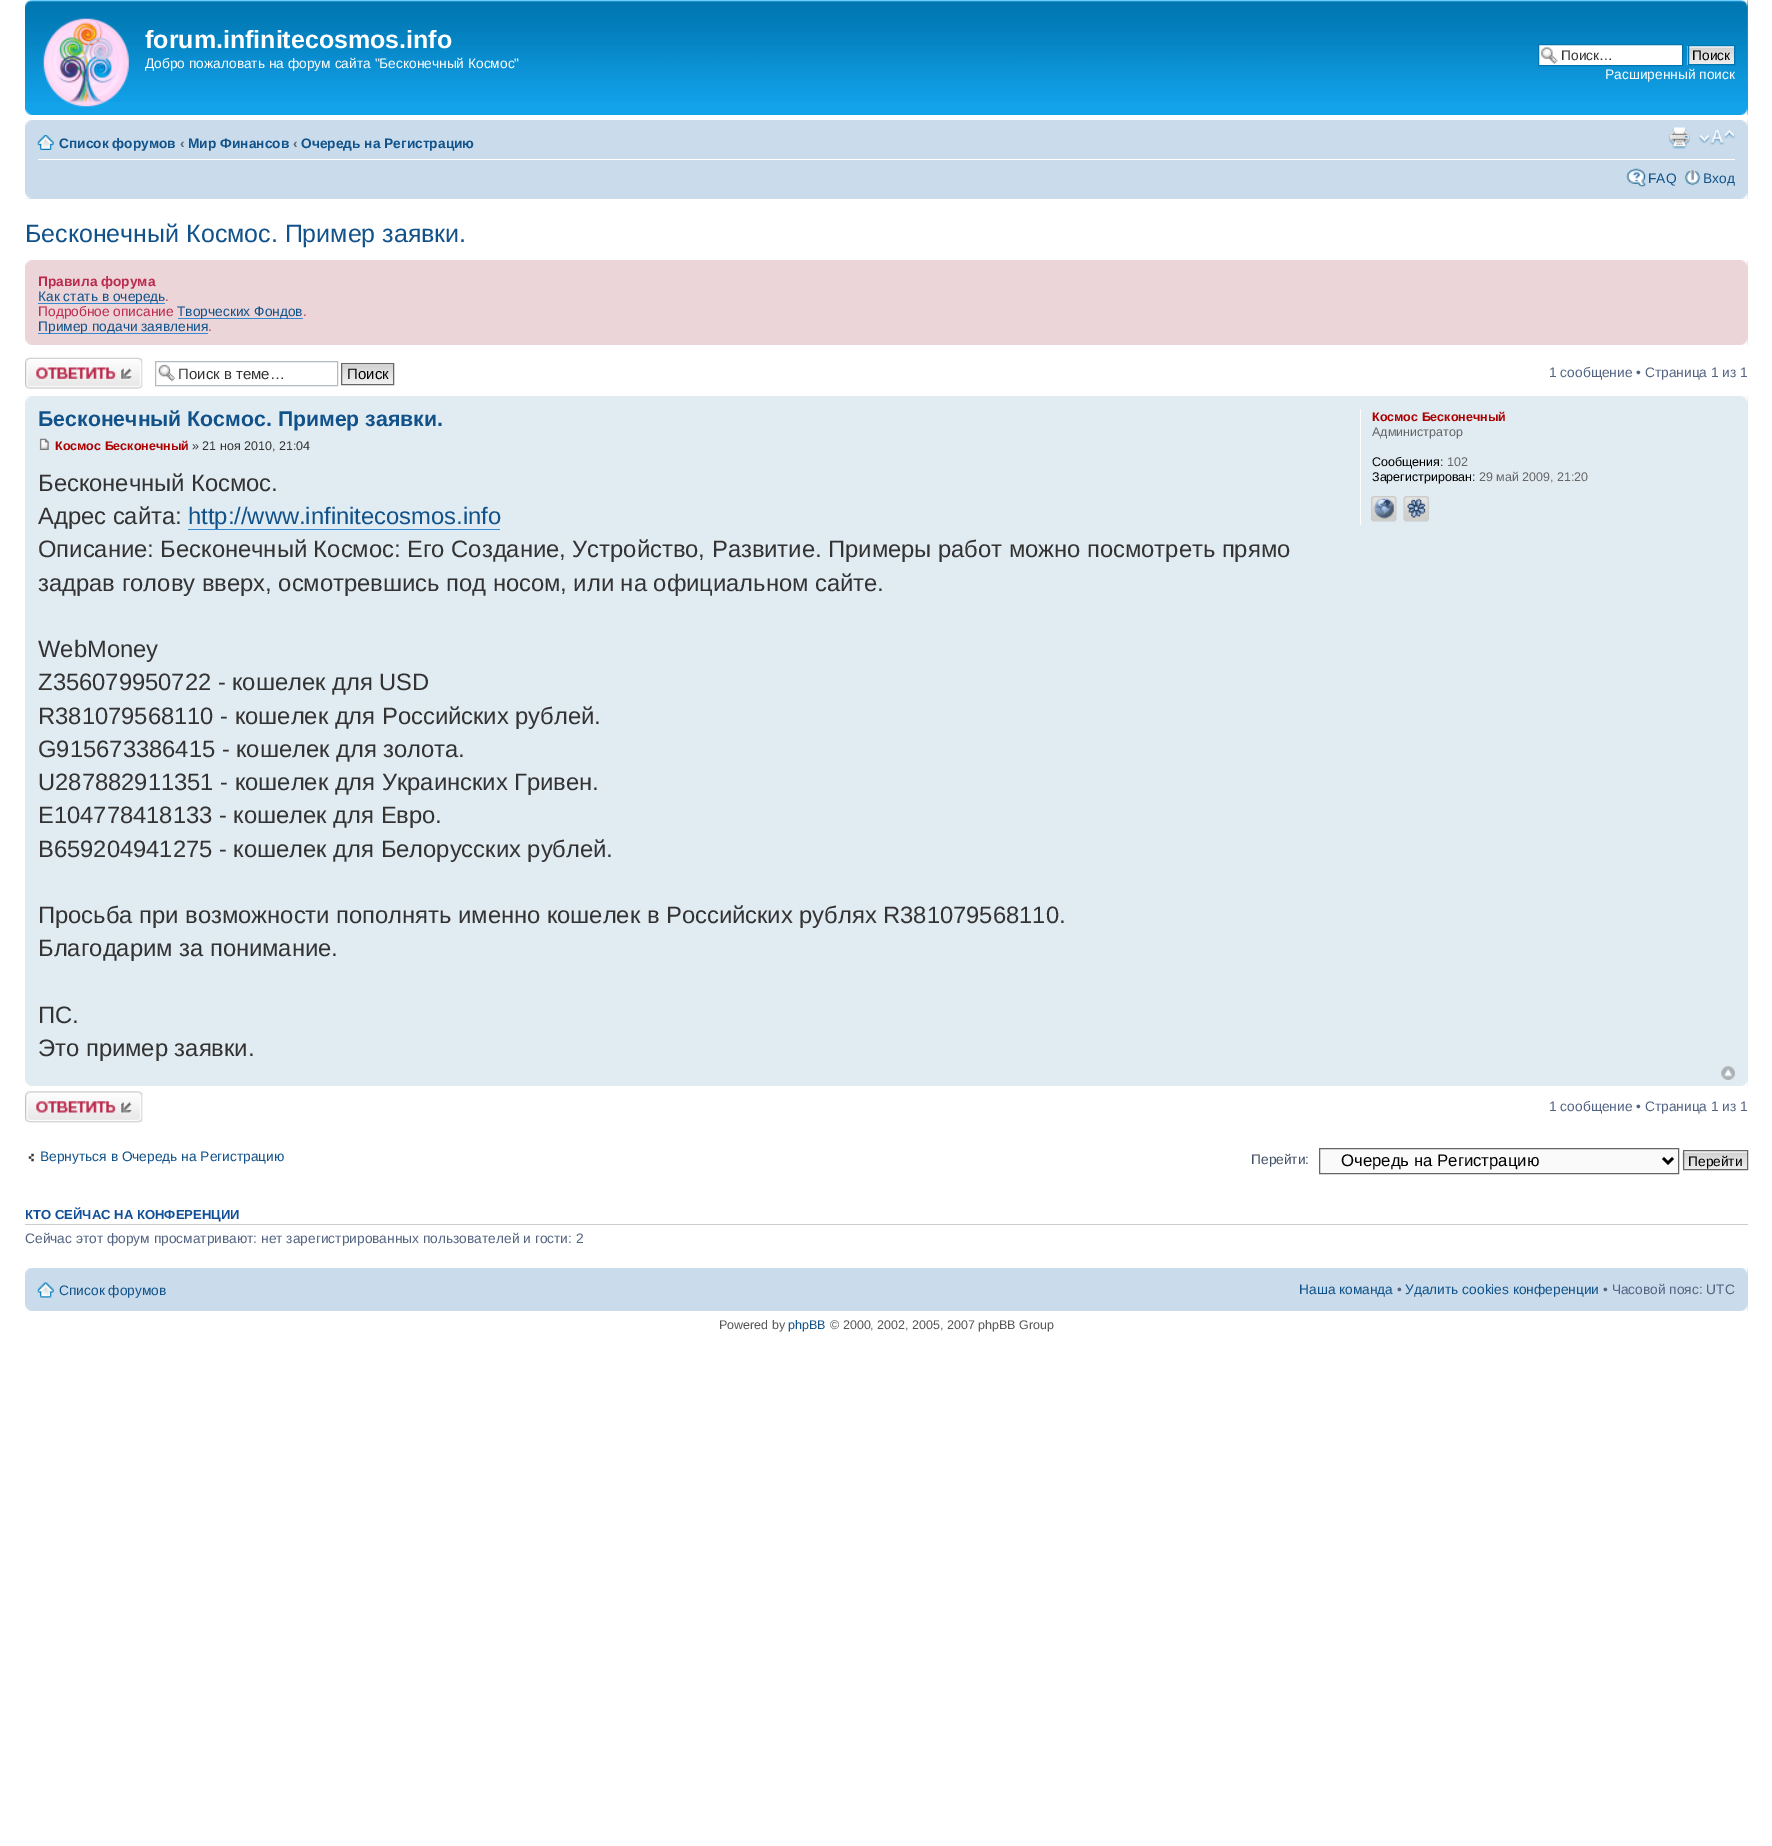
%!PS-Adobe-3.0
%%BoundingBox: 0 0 1772 1846
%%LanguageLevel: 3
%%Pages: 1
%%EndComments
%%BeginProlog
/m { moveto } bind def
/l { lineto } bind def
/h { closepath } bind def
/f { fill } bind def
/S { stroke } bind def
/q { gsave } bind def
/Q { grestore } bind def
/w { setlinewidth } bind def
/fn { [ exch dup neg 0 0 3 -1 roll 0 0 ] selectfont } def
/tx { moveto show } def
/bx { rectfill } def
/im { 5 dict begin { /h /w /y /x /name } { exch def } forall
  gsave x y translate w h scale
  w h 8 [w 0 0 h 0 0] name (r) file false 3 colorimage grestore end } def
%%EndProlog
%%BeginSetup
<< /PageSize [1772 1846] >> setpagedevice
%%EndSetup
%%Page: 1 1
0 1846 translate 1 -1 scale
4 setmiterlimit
1 setgray
0 0 1772 1846 bx
0.071 0.639 0.922 setrgbcolor
25 0 1723 115 bx
(image0.raw) 25 0 1723 102 im
(image1.raw) 25 0 7 7 im
(image2.raw) 1741 0 7 7 im
(image3.raw) 43 18 86 89 im
/LiberationSans-Bold 25 fn
1 setgray
(forum.infinitecosmos.info) 145 48 tx
/LiberationSans-Regular 13.75 fn
(Добро пожаловать на форум сайта "Бесконечный Космос") 145 68 tx
1539 45 143 20 bx
(image4.raw) 1541 47 17 17 im
0 0.459 0.69 setrgbcolor
1538.5 44.5 144 21 rectstroke
0.2 setgray
(Поиск…) 1561 60 tx
(image5.raw) 1687 46 47 19 im
0 0.459 0.69 setrgbcolor
1688.5 45.5 46 19 rectstroke
0 setgray
(Поиск) 1692 60 tx
1 setgray
(Расширенный поиск) 1605 79 tx
(image6.raw) 25 108 7 7 im
(image7.raw) 1741 108 7 7 im
0.792 0.863 0.922 setrgbcolor
25 120 1723 79 bx
(image8.raw) 25 120 7 6 im
(image9.raw) 1741 120 7 6 im
1 setgray
38 159 1697 1 bx
(image10.raw) 37 135 17 15 im
/LiberationSans-Bold 13.75 fn
0.063 0.322 0.537 setrgbcolor
(Список форумов) 59 148 tx
0.325 0.392 0.51 setrgbcolor
(‹) 180 148 tx
0.063 0.322 0.537 setrgbcolor
(Мир Финансов) 188 148 tx
0.325 0.392 0.51 setrgbcolor
(‹) 293 148 tx
0.063 0.322 0.537 setrgbcolor
(Очередь на Регистрацию) 301 148 tx
(image11.raw) 1668 127 22 22 im
(image12.raw) 1698 130 37 15 im
(image13.raw) 1626 168 21 19 im
/LiberationSans-Regular 13.75 fn
(FAQ) 1648 183 tx
(image14.raw) 1684 170 17 16 im
(Вход) 1703 183 tx
(image15.raw) 25 192 6 7 im
(image16.raw) 1741 193 7 6 im
/LiberationSans-Regular 25 fn
(Бесконечный Космос. Пример заявки.) 25 242 tx
0.925 0.835 0.847 setrgbcolor
25 260 1723 85 bx
(image17.raw) 25 260 6 6 im
(image18.raw) 1741 260 7 6 im
/LiberationSans-Bold 13.75 fn
0.737 0.165 0.302 setrgbcolor
(Правила форума) 38 286 tx
0.212 0.541 0.824 setrgbcolor
38 303 127 1 bx
/LiberationSans-Regular 13.75 fn
0.063 0.322 0.537 setrgbcolor
(Как стать в очередь) 38 301 tx
0.737 0.165 0.302 setrgbcolor
(.) 165 301 tx
(Подробное описание) 38 316 tx
0.212 0.541 0.824 setrgbcolor
178 318 125 1 bx
0.063 0.322 0.537 setrgbcolor
(Творческих Фондов) 177 316 tx
0.737 0.165 0.302 setrgbcolor
(.) 303 316 tx
0.212 0.541 0.824 setrgbcolor
38 333 170 1 bx
0.063 0.322 0.537 setrgbcolor
(Пример подачи заявления) 38 331 tx
0.737 0.165 0.302 setrgbcolor
(.) 208 331 tx
(image19.raw) 25 339 6 6 im
(image20.raw) 1741 339 7 6 im
(image21.raw) 25 357 118 32 im
(image22.raw) 158 364 18 18 im
0.706 0.729 0.753 setrgbcolor
155.5 361.5 182 24 rectstroke
/LiberationSans-Regular 15 fn
0.2 setgray
(Поиск в теме…) 178 379 tx
0.98 setgray
342 364 51 1 bx
(image23.raw) 342 365 51 19 im
0.4 setgray
341.5 363.5 52 21 rectstroke
0 setgray
(Поиск) 347 379 tx
/LiberationSans-Regular 13.75 fn
0.325 0.392 0.51 setrgbcolor
(1 сообщение • Страница 1 из 1) 1549 377 tx
0.882 0.922 0.949 setrgbcolor
25 396 1723 690 bx
(image24.raw) 25 396 6 6 im
(image25.raw) 1742 396 6 6 im
/LiberationSans-Bold 21.25 fn
0.063 0.322 0.537 setrgbcolor
(Бесконечный Космос. Пример заявки.) 38 426 tx
(image26.raw) 39 438 10 12 im
/LiberationSans-Bold 12.5 fn
0.667 0 0 setrgbcolor
(Космос Бесконечный) 55 450 tx
/LiberationSans-Regular 12.5 fn
0.2 setgray
(» 21 ноя 2010, 21:04) 192 450 tx
/LiberationSans-Regular 23.75 fn
(Бесконечный Космос.) 38 491 tx
(Адрес сайта:) 38 524 tx
0.063 0.322 0.537 setrgbcolor
(http://www.infinitecosmos.info) 188 524 tx
0.212 0.541 0.824 setrgbcolor
188 529 312 1 bx
0.2 setgray
(Описание: Бесконечный Космос: Его Создание, Устройство, Развитие. Примеры работ можно посмотреть прямо) 38 557 tx
(задрав голову вверх, осмотревшись под носом, или на официальном сайте.) 38 591 tx
(WebMoney) 38 657 tx
(Z356079950722 - кошелек для USD) 38 690 tx
(R381079568110 - кошелек для Российских рублей.) 38 724 tx
(G915673386415 - кошелек для золота.) 38 757 tx
(U287882911351 - кошелек для Украинских Гривен.) 38 790 tx
(E104778418133 - кошелек для Евро.) 38 823 tx
(B659204941275 - кошелек для Белорусских рублей.) 38 857 tx
(Просьба при возможности пополнять именно кошелек в Российских рублях R381079568110.) 38 923 tx
(Благодарим за понимание.) 38 956 tx
(ПС.) 38 1023 tx
(Это пример заявки.) 38 1056 tx
1 setgray
1360 409 1 116 bx
/LiberationSans-Bold 12.5 fn
0.667 0 0 setrgbcolor
(Космос Бесконечный) 1372 421 tx
/LiberationSans-Regular 12.5 fn
0.4 setgray
(Администратор) 1372 436 tx
0 setgray
(Сообщения:) 1372 466 tx
0.4 setgray
(102) 1447 466 tx
0 setgray
(Зарегистрирован:) 1372 481 tx
0.4 setgray
(29 май 2009, 21:20) 1479 481 tx
(image27.raw) 1371 496 26 26 im
(image28.raw) 1371 496 26 26 im
(image29.raw) 1403 496 26 26 im
(image30.raw) 1403 496 26 26 im
(image31.raw) 1721 1066 14 14 im
(image32.raw) 25 1080 6 6 im
(image33.raw) 1741 1080 7 6 im
(image34.raw) 25 1091 118 32 im
/LiberationSans-Regular 13.75 fn
0.325 0.392 0.51 setrgbcolor
(1 сообщение • Страница 1 из 1) 1549 1111 tx
(image35.raw) 28 1153 6 9 im
0.063 0.322 0.537 setrgbcolor
(Вернуться в Очередь на Регистрацию) 40 1161 tx
0.259 0.314 0.404 setrgbcolor
(Перейти:) 1251 1164 tx
0.98 setgray
1319.5 1148.5 m 1678.5 1148.5 l 1678.5 1173.5 l 1319.5 1173.5 l h q f Q
0.4 setgray
S
0 setgray
2.5 w
1663 1158 m 1668 1163 l 1673 1158 l S
/LiberationSans-Regular 16.75 fn
(Очередь на Регистрацию) 1341 1166 tx
0.98 setgray
1684 1151 63 1 bx
(image36.raw) 1682 1152 65 18 im
0.4 setgray
1 w
1683.5 1150.5 64 19 rectstroke
/LiberationSans-Regular 13.75 fn
0 setgray
(Перейти) 1688 1166 tx
0.8 setgray
25 1224 1723 1 bx
/LiberationSans-Bold 13.1 fn
0.067 0.314 0.596 setrgbcolor
(КТО СЕЙЧАС НА КОНФЕРЕНЦИИ) 25 1219 tx
/LiberationSans-Regular 13.75 fn
0.325 0.392 0.51 setrgbcolor
(Сейчас этот форум просматривают: нет зарегистрированных пользователей и гости: 2) 25 1243 tx
0.792 0.863 0.922 setrgbcolor
25 1268 1723 43 bx
(image37.raw) 25 1268 6 6 im
(image38.raw) 1741 1268 7 6 im
(image39.raw) 37 1282 17 16 im
0.063 0.322 0.537 setrgbcolor
(Список форумов) 59 1295 tx
(Наша команда) 1299 1294 tx
0.325 0.392 0.51 setrgbcolor
(•) 1397 1294 tx
0.063 0.322 0.537 setrgbcolor
(Удалить cookies конференции) 1405 1294 tx
0.325 0.392 0.51 setrgbcolor
(• Часовой пояс: UTC) 1603 1294 tx
(image40.raw) 25 1305 6 6 im
(image41.raw) 1741 1305 7 6 im
/LiberationSans-Regular 12.5 fn
0.333 setgray
(Powered by) 719 1329 tx
0.063 0.322 0.537 setrgbcolor
(phpBB) 788 1329 tx
0.333 setgray
(© 2000, 2002, 2005, 2007 phpBB Group) 830 1329 tx
showpage
%%EOF
